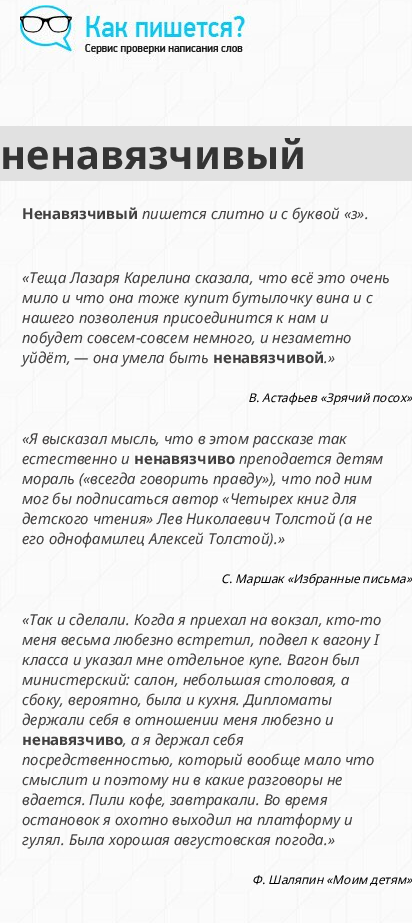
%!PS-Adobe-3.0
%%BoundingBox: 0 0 412 923
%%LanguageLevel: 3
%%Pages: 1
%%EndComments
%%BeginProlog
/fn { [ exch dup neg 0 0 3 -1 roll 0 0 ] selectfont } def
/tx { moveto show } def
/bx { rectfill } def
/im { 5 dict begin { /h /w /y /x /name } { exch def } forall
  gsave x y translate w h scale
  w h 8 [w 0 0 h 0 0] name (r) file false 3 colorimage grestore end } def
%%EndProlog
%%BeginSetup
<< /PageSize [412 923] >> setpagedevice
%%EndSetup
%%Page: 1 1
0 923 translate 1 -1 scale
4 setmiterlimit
1 setgray
0 0 412 923 bx
(image0.raw) 0 0 412 923 im
(image1.raw) 20 5 231 67 im
0.882 setgray
0 126 412 55 bx
/NotoSans-Bold 40 fn
0.204 setgray
(ненавязчивый) 0 169 tx
/NotoSans-Bold 15 fn
0.259 0.255 0.255 setrgbcolor
(Ненавязчивый) 22 219 tx
/NotoSans-Italic 15 fn
(пишется слитно и с буквой «з».) 142 219 tx
(«Теща Лазаря Карелина сказала, что всё это очень) 22 283 tx
(мило и что она тоже купит бутылочку вина и с) 22 303 tx
(нашего позволения присоединится к нам и) 22 323 tx
(побудет совсем-совсем немного, и незаметно) 22 343 tx
(уйдёт, — она умела быть) 22 363 tx
/NotoSans-Bold 15 fn
(ненавязчивой) 213 363 tx
/NotoSans-Italic 15 fn
(.») 324 363 tx
/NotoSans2-Italic 12 fn
0 setgray
(В. Астафьев «Зрячий посох») 248 402 tx
/NotoSans-Italic 15 fn
0.259 0.255 0.255 setrgbcolor
(«Я высказал мысль, что в этом рассказе так) 22 444 tx
(естественно и) 22 464 tx
/NotoSans-Bold 15 fn
(ненавязчиво) 134 464 tx
/NotoSans-Italic 15 fn
(преподается детям) 239 464 tx
(мораль \(«всегда говорить правду»\), что под ним) 22 484 tx
(мог бы подписаться автор «Четырех книг для) 22 504 tx
(детского чтения» Лев Николаевич Толстой \(а не) 22 524 tx
(его однофамилец Алексей Толстой\).») 22 544 tx
/NotoSans2-Italic 12 fn
0 setgray
(С. Маршак «Избранные письма») 221 583 tx
/NotoSans-Italic 15 fn
0.259 0.255 0.255 setrgbcolor
(«Так и сделали. Когда я приехал на вокзал, кто-то) 22 625 tx
(меня весьма любезно встретил, подвел к вагону I) 22 645 tx
(класса и указал мне отдельное купе. Вагон был) 22 665 tx
(министерский: салон, небольшая столовая, а) 22 685 tx
(сбоку, вероятно, была и кухня. Дипломаты) 22 705 tx
(держали себя в отношении меня любезно и) 22 725 tx
/NotoSans-Bold 15 fn
(ненавязчиво) 22 745 tx
/NotoSans-Italic 15 fn
(, а я держал себя) 123 745 tx
(посредственностью, который вообще мало что) 22 765 tx
(смыслит и поэтому ни в какие разговоры не) 22 785 tx
(вдается. Пили кофе, завтракали. Во время) 22 805 tx
(остановок я охотно выходил на платформу и) 22 825 tx
(гулял. Была хорошая августовская погода.») 22 845 tx
/NotoSans2-Italic 12 fn
0 setgray
(Ф. Шаляпин «Моим детям») 252 884 tx
showpage
%%EOF
